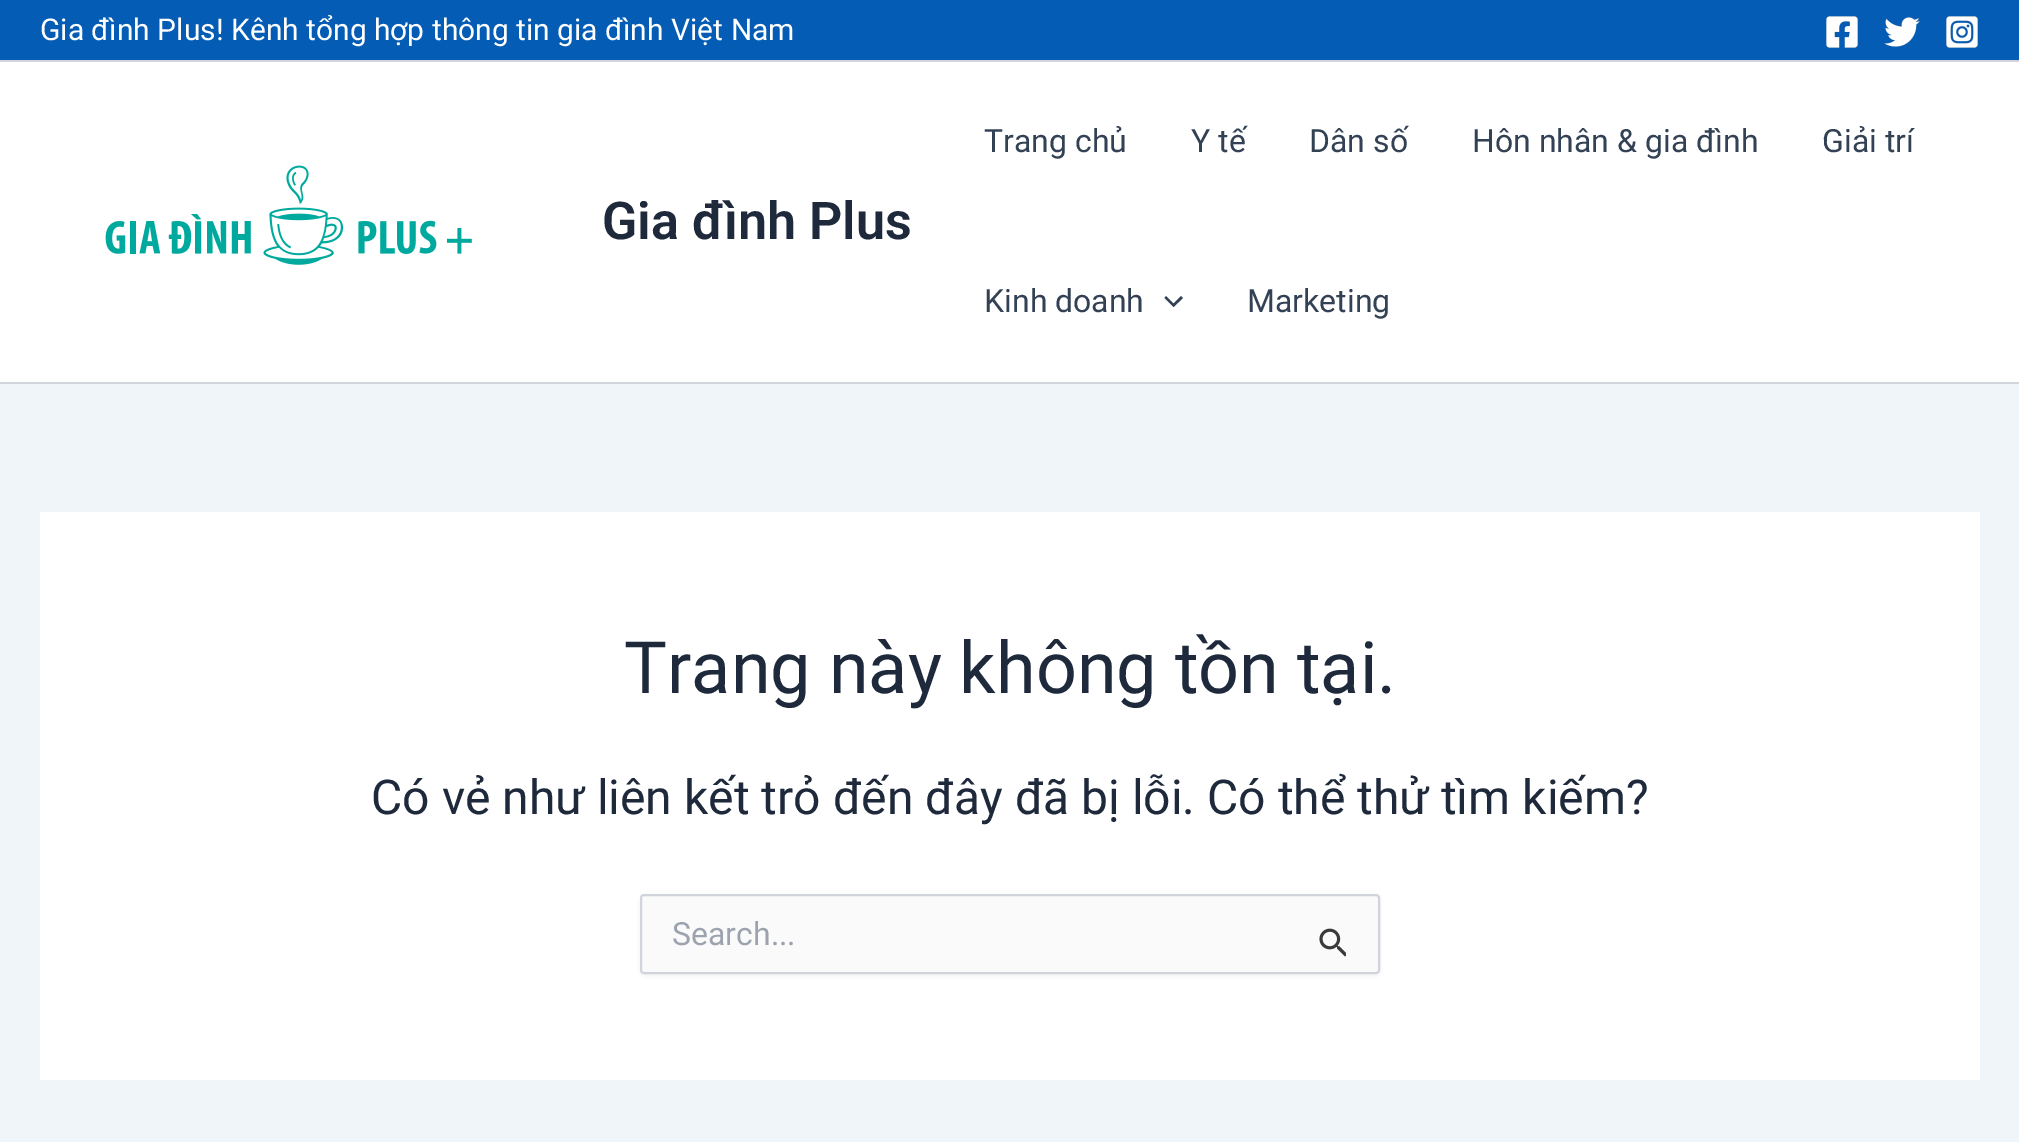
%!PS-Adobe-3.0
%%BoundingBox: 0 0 2019 1142
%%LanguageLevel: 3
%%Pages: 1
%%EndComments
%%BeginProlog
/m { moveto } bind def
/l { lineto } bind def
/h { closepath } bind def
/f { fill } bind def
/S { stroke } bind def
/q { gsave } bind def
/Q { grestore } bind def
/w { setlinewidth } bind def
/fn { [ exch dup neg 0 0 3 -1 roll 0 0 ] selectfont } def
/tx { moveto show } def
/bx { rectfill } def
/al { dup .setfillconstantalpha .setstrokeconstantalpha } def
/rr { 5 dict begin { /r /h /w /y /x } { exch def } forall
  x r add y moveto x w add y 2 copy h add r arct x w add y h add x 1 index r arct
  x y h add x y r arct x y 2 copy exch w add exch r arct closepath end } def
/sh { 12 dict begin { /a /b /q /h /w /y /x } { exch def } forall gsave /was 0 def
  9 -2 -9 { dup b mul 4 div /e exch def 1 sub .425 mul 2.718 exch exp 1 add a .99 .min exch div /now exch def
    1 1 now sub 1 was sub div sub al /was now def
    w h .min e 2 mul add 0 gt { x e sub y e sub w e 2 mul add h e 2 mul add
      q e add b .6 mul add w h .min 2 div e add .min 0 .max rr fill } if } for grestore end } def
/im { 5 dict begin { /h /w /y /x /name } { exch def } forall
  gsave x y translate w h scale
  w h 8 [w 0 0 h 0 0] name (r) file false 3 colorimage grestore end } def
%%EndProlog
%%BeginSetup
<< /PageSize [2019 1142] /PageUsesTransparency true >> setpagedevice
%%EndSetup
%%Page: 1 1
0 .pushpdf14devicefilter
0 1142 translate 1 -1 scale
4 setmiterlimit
0.941 0.961 0.98 setrgbcolor
0 0 2019 1142 bx
0.016 0.361 0.706 setrgbcolor
0 0 2019 60 bx
0.82 0.835 0.859 setrgbcolor
0 60 2019 2 bx
/Roboto-Regular 30 fn
1 setgray
(Gia đình Plus! Kênh tổng hợp thông tin gia đình Việt Nam) 40 40 tx
(image0.raw) 1826 16 32 32 im
(image1.raw) 1884 17 36 30 im
(image2.raw) 1946 16 32 32 im
0 62 2019 320 bx
0.82 0.835 0.859 setrgbcolor
0 382 2019 2 bx
(image3.raw) 105 165 367 100 im
/Roboto-SemiBold 52 fn
0.118 0.161 0.231 setrgbcolor
(Gia đình Plus) 602 239 tx
/Roboto-Regular 32 fn
0.2 0.255 0.333 setrgbcolor
(Trang chủ) 984 152 tx
(Y tế) 1191 152 tx
(Dân số) 1309 152 tx
(Hôn nhân & gia đình) 1472 152 tx
(Giải trí) 1822 152 tx
(Kinh doanh) 984 312 tx
1164.5 298 m 1173.5 307 l 1183 298 l 1181 296 l 1173.5 303.5 l 1166 296 l h f
(Marketing) 1247 312 tx
1 setgray
40 512 1940 568 bx
/Roboto-Regular 72 fn
0.118 0.161 0.231 setrgbcolor
(Trang này không tồn tại.) 624 693 tx
/Roboto-Regular 48 fn
(Có vẻ như liên kết trỏ đến đây đã bị lỗi. Có thể thử tìm kiếm?) 371 814 tx
0 setgray
640 896 740 80 4 2 0.05 sh
0.98 setgray
641 895 738 78 3 rr q f Q
0.82 0.835 0.859 setrgbcolor
2 w
S
/Roboto-Regular 32 fn
0.612 0.639 0.686 setrgbcolor
(Search...) 672 945 tx
(image4.raw) 1319 928 27 29 im
.poppdf14devicefilter showpage
%%EOF
